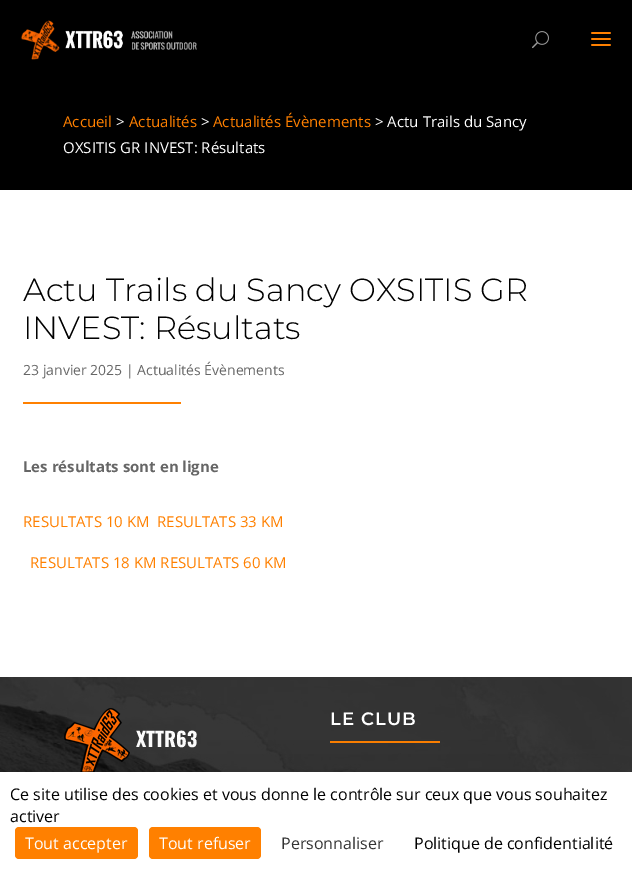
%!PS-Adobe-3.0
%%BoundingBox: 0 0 632 869
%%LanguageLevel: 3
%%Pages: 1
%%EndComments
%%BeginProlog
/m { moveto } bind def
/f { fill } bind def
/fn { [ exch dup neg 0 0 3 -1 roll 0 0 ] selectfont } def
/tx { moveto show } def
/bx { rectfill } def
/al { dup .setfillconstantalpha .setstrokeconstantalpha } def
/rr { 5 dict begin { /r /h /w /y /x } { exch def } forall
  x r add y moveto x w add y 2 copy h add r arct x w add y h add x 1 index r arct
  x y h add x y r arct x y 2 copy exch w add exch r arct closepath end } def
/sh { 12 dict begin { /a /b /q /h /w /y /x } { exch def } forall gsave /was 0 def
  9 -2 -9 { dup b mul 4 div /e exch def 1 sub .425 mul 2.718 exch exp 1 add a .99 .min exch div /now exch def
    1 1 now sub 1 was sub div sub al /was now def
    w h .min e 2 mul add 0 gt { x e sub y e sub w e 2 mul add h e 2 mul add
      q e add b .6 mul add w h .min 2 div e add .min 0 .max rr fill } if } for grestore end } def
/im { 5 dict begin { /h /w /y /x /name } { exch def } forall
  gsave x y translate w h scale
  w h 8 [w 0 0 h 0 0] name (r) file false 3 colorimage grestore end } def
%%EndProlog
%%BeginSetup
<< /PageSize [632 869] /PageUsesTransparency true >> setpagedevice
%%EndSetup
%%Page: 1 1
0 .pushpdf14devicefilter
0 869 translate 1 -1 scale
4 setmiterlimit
0 setgray
0 0 632 869 bx
(image0.raw) 20 20 177 40 im
(image1.raw) 532 31 17 18 im
(image2.raw) 591 32 20 14 im
1 setgray
0 190 632 487 bx
/OpenSans-Regular 15 fn
1 0.502 0 setrgbcolor
(Accueil) 63 127 tx
1 setgray
(>) 116 127 tx
1 0.502 0 setrgbcolor
(Actualités) 129 127 tx
1 setgray
(>) 201 127 tx
1 0.502 0 setrgbcolor
(Actualités Évènements) 213 127 tx
1 setgray
(> Actu Trails du Sancy) 375 127 tx
(OXSITIS GR INVEST: Résultats) 63 153 tx
/Montserrat-Light 32 fn
0 setgray
(Actu Trails du Sancy OXSITIS GR) 23 301 tx
(INVEST: Résultats) 23 339 tx
/OpenSans-Regular 14 fn
0.4 setgray
(23 janvier 2025 | Actualités Évènements) 23 375 tx
1 0.502 0 setrgbcolor
23 402 158 2 bx
/OpenSans-Bold 15 fn
0.4 setgray
(Les résultats sont en ligne) 23 472 tx
/OpenSans-Regular 15 fn
1 0.502 0 setrgbcolor
(RESULTATS 10 KM) 23 527 tx
(RESULTATS 33 KM) 157 527 tx
(RESULTATS 18 KM RESULTATS 60 KM) 30 568 tx
(image3.raw) 0 677 632 95 im
/Montserrat-SemiBold 18 fn
1 setgray
330 725 m 1 0 (LE CLUB) ashow
1 0.502 0 setrgbcolor
330 741 110 2 bx
(image4.raw) 64 708 66 64 im
/Oswald-Bold 20 fn
1 setgray
(XTTR63) 136 747 tx
0 setgray
0 792 632 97 0 30 0.25 sh
1 setgray
0 772 632 97 bx
/OpenSans-Regular 16 fn
0 setgray
(Ce site utilise des cookies et vous donne le contrôle sur ceux que vous souhaitez) 10 800 tx
(activer) 10 822 tx
1 0.502 0 setrgbcolor
15 827 123 32 4 rr f
1 setgray
(Tout accepter) 25 849 tx
1 0.502 0 setrgbcolor
149 827 112 32 4 rr f
1 setgray
(Tout refuser) 159 849 tx
0.2 setgray
(Personnaliser) 281 849 tx
0 setgray
(Politique de confidentialité) 414 849 tx
.poppdf14devicefilter showpage
%%EOF
